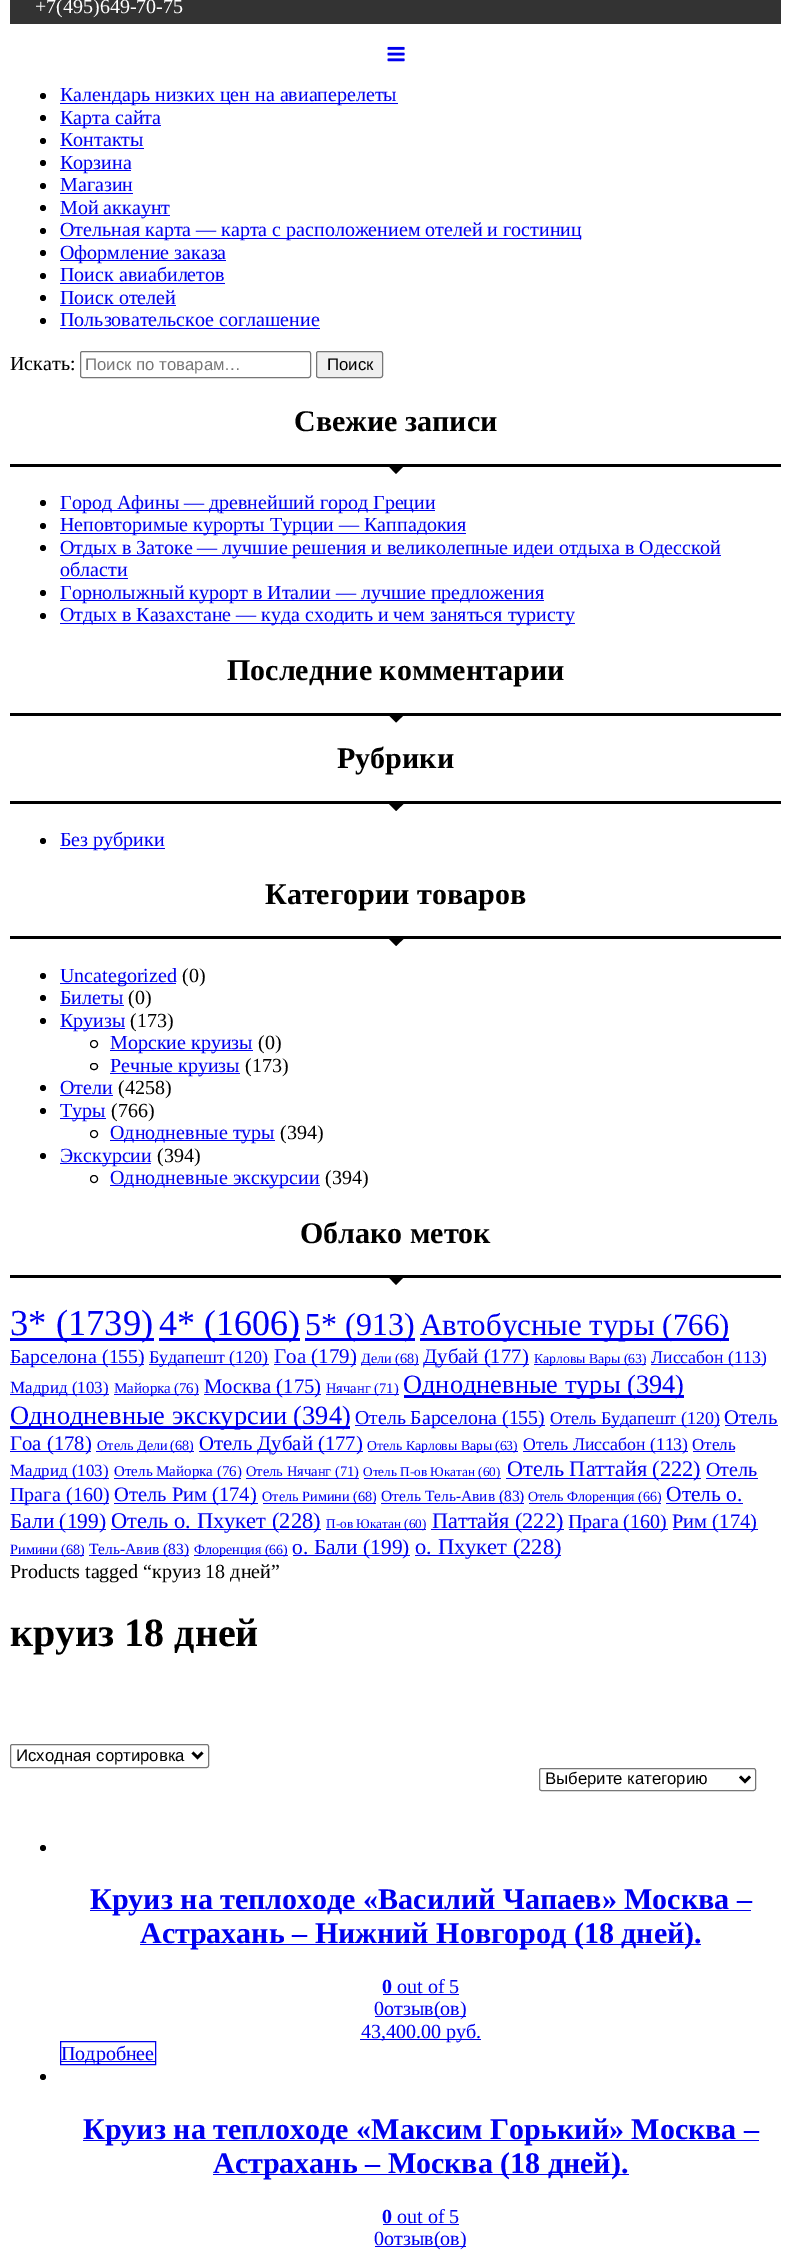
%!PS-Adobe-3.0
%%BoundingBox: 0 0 791 2256
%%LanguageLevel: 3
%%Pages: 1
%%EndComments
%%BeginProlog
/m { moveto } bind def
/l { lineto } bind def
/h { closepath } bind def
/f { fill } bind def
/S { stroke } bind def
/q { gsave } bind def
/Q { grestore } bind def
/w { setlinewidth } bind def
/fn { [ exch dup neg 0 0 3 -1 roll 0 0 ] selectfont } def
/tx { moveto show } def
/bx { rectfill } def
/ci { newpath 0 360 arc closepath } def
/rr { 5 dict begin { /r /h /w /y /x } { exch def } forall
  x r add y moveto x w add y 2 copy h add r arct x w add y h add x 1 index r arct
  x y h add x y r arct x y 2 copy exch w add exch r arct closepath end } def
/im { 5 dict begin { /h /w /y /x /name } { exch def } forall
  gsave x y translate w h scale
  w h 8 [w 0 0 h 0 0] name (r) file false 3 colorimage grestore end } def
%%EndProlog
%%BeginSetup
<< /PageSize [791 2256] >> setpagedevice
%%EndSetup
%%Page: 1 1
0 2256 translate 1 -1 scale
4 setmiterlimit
1 setgray
0 0 791 2256 bx
0.2 setgray
10 0 771 24 bx
/LiberationSerif-Regular 20 fn
1 setgray
(+7\(495\)649-70-75) 35 13 tx
(image0.raw) 387 46 18 16 im
0 setgray
43 96 3 ci f
0 0 0.933 setrgbcolor
60 103 338 1 bx
(Календарь низких цен на авиаперелеты) 60 101 tx
0 setgray
43 118 3 ci f
0 0 0.933 setrgbcolor
60 125 101 1 bx
(Карта сайта) 60 124 tx
0 setgray
43 141 3 ci f
0 0 0.933 setrgbcolor
(Контакты) 60 146 tx
60 148 84 1 bx
0 setgray
43 163 3 ci f
0 0 0.933 setrgbcolor
60 170 71 1 bx
(Корзина) 60 169 tx
0 setgray
43 186 3 ci f
0 0 0.933 setrgbcolor
(Магазин) 60 191 tx
60 193 73 1 bx
0 setgray
43 208 3 ci f
0 0 0.933 setrgbcolor
60 215 110 1 bx
(Мой аккаунт) 60 214 tx
0 setgray
43 231 3 ci f
0 0 0.933 setrgbcolor
60 238 521 1 bx
(Отельная карта — карта с расположением отелей и гостиниц) 60 236 tx
0 setgray
43 253 3 ci f
0 0 0.933 setrgbcolor
60 260 166 1 bx
(Оформление заказа) 60 259 tx
0 setgray
43 276 3 ci f
0 0 0.933 setrgbcolor
(Поиск авиабилетов) 60 281 tx
60 283 165 1 bx
0 setgray
43 298 3 ci f
0 0 0.933 setrgbcolor
(Поиск отелей) 60 304 tx
60 305 116 1 bx
0 setgray
43 321 3 ci f
0 0 0.933 setrgbcolor
(Пользовательское соглашение) 60 326 tx
60 328 260 1 bx
0 setgray
(Искать:) 10 370 tx
0.463 setgray
80.5 351.5 230 26 2 rr S
/LiberationSans-Regular 16.75 fn
0.459 setgray
(Поиск по товарам…) 85 370 tx
0.937 setgray
316.5 351.5 66 26 2 rr q f Q
0.463 setgray
S
0 setgray
(Поиск) 327 370 tx
10 464 771 3 bx
/LiberationSerif-Bold 30 fn
(Свежие записи) 294 431 tx
387.5 465 m 405 465 l 396 474 l h f
43 503 3 ci f
0 0 0.933 setrgbcolor
60 510 375 1 bx
/LiberationSerif-Regular 20 fn
(Город Афины — древнейший город Греции) 60 509 tx
0 setgray
43 526 3 ci f
0 0 0.933 setrgbcolor
60 533 406 1 bx
(Неповторимые курорты Турции — Каппадокия) 60 531 tx
0 setgray
43 548 3 ci f
0 0 0.933 setrgbcolor
60 555 661 1 bx
(Отдых в Затоке — лучшие решения и великолепные идеи отдыха в Одесской) 60 554 tx
(области) 60 576 tx
60 578 68 1 bx
0 setgray
43 593 3 ci f
0 0 0.933 setrgbcolor
60 600 484 1 bx
(Горнолыжный курорт в Италии — лучшие предложения) 60 599 tx
0 setgray
43 616 3 ci f
0 0 0.933 setrgbcolor
60 623 515 1 bx
(Отдых в Казахстане — куда сходить и чем заняться туристу) 60 621 tx
0 setgray
10 713 771 3 bx
/LiberationSerif-Bold 30 fn
(Последние комментарии) 227 680 tx
387.5 714 m 405 714 l 396 722.5 l h f
10 801 771 3 bx
(Рубрики) 337 768 tx
387.5 802.5 m 405 802.5 l 396 811 l h f
43 841 3 ci f
0 0 0.933 setrgbcolor
60 848 105 1 bx
/LiberationSerif-Regular 20 fn
(Без рубрики) 60 846 tx
0 setgray
10 936 771 3 bx
/LiberationSerif-Bold 30 fn
(Категории товаров) 265 904 tx
387.5 937.5 m 405 937.5 l 396 946 l h f
43 976 3 ci f
0 0 0.933 setrgbcolor
60 983 116 1 bx
/LiberationSerif-Regular 20 fn
(Uncategorized) 60 982 tx
0 setgray
(\(0\)) 182 982 tx
43 998 3 ci f
0 0 0.933 setrgbcolor
(Билеты) 60 1004 tx
60 1005 64 1 bx
0 setgray
(\(0\)) 128 1004 tx
43 1021 3 ci f
0 0 0.933 setrgbcolor
60 1028 65 1 bx
(Круизы) 60 1027 tx
0 setgray
(\(173\)) 130 1027 tx
94 1044 3.5 ci S
0 0 0.933 setrgbcolor
110 1050 143 1 bx
(Морские круизы) 110 1049 tx
0 setgray
(\(0\)) 258 1049 tx
90.5 1063.5 7 6 3 rr S
0 0 0.933 setrgbcolor
110 1073 130 1 bx
(Речные круизы) 110 1072 tx
0 setgray
(\(173\)) 245 1072 tx
43 1088 3 ci f
0 0 0.933 setrgbcolor
(Отели) 60 1094 tx
60 1095 53 1 bx
0 setgray
(\(4258\)) 118 1094 tx
43 1111 3 ci f
0 0 0.933 setrgbcolor
60 1118 46 1 bx
(Туры) 60 1117 tx
0 setgray
(\(766\)) 111 1117 tx
94 1134 3.5 ci S
0 0 0.933 setrgbcolor
110 1140 165 1 bx
(Однодневные туры) 110 1139 tx
0 setgray
(\(394\)) 280 1139 tx
43 1156 3 ci f
0 0 0.933 setrgbcolor
60 1163 91 1 bx
(Экскурсии) 60 1162 tx
0 setgray
(\(394\)) 157 1162 tx
94 1179 3.5 ci S
0 0 0.933 setrgbcolor
110 1185 210 1 bx
(Однодневные экскурсии) 110 1184 tx
0 setgray
(\(394\)) 325 1184 tx
10 1275 771 3 bx
/LiberationSerif-Bold 30 fn
(Облако меток) 300 1243 tx
387.5 1276 m 405 1276 l 396 1285 l h f
0 0 0.933 setrgbcolor
10 1338 144 3 bx
/LiberationSerif-Regular 36.5 fn
(3* \(1739\)) 10 1335 tx
159 1338 141 3 bx
/LiberationSerif-Regular 36 fn
(4* \(1606\)) 159 1335 tx
305 1338 110 3 bx
/LiberationSerif-Regular 32 fn
(5* \(913\)) 305 1335 tx
420 1338 309 3 bx
/LiberationSerif-Regular 30.9 fn
(Автобусные туры \(766\)) 420 1335 tx
10 1364 86 1 bx
/LiberationSerif-Regular 19.75 fn
(Барселона) 10 1363 tx
96 1364 48 1 bx
(\(155\)) 102 1363 tx
149 1364 120 1 bx
/LiberationSerif-Regular 18 fn
(Будапешт \(120\)) 149 1363 tx
274 1364 82 1 bx
/LiberationSerif-Regular 21 fn
(Гоа \(179\)) 274 1363 tx
361 1364 30 1 bx
/LiberationSerif-Regular 14.25 fn
(Дели) 361 1363 tx
391 1364 28 1 bx
(\(68\)) 395 1363 tx
424 1364 105 1 bx
/LiberationSerif-Regular 20.75 fn
(Дубай \(177\)) 423 1363 tx
534 1364 112 1 bx
/LiberationSerif-Regular 13.75 fn
(Карловы Вары \(63\)) 534 1363 tx
651 1364 114 1 bx
/LiberationSerif-Regular 17.75 fn
(Лиссабон \(113\)) 651 1363 tx
10 1394 99 1 bx
/LiberationSerif-Regular 17 fn
(Мадрид \(103\)) 10 1393 tx
114 1394 56 1 bx
/LiberationSerif-Regular 15 fn
(Майорка) 114 1393 tx
170 1394 29 1 bx
(\(76\)) 174 1393 tx
204 1394 117 1 bx
/LiberationSerif-Regular 20.75 fn
(Москва \(175\)) 204 1393 tx
326 1394 73 1 bx
/LiberationSerif-Regular 14.5 fn
(Нячанг \(71\)) 326 1393 tx
404 1395 280 3 bx
/LiberationSerif-Regular 26.4 fn
(Однодневные туры \(394\)) 403 1393 tx
10 1426 340 3 bx
(Однодневные экскурсии \(394\)) 10 1424 tx
355 1425 190 1 bx
/LiberationSerif-Regular 19.75 fn
(Отель Барселона \(155\)) 355 1424 tx
550 1425 170 1 bx
/LiberationSerif-Regular 18 fn
(Отель Будапешт \(120\)) 550 1424 tx
/LiberationSerif-Regular 20.75 fn
(Отель) 724 1424 tx
725 1425 53 1 bx
10 1451 81 1 bx
(Гоа \(178\)) 10 1450 tx
96 1451 70 1 bx
/LiberationSerif-Regular 14.25 fn
(Отель Дели) 97 1450 tx
166 1451 28 1 bx
(\(68\)) 170 1450 tx
199 1451 164 1 bx
/LiberationSerif-Regular 20.75 fn
(Отель Дубай \(177\)) 199 1450 tx
368 1451 123 1 bx
/LiberationSerif-Regular 13.75 fn
(Отель Карловы Вары) 367 1450 tx
491 1451 27 1 bx
(\(63\)) 495 1450 tx
523 1451 165 1 bx
/LiberationSerif-Regular 17.75 fn
(Отель Лиссабон \(113\)) 523 1450 tx
/LiberationSerif-Regular 17 fn
(Отель) 692 1450 tx
693 1451 42 1 bx
10 1478 99 1 bx
(Мадрид \(103\)) 10 1476 tx
114 1478 127 1 bx
/LiberationSerif-Regular 15 fn
(Отель Майорка \(76\)) 114 1476 tx
246 1478 113 1 bx
/LiberationSerif-Regular 14.5 fn
(Отель Нячанг \(71\)) 246 1476 tx
364 1478 137 1 bx
/LiberationSerif-Regular 13.25 fn
(Отель П-ов Юкатан \(60\)) 363 1476 tx
506 1478 195 1 bx
/LiberationSerif-Regular 22.25 fn
(Отель Паттайя \(222\)) 507 1476 tx
/LiberationSerif-Regular 20 fn
(Отель) 706 1476 tx
706 1478 52 1 bx
10 1503 50 1 bx
(Прага) 10 1501 tx
60 1503 49 1 bx
(\(160\)) 66 1501 tx
114 1503 144 1 bx
/LiberationSerif-Regular 20.5 fn
(Отель Рим \(174\)) 114 1501 tx
263 1503 113 1 bx
/LiberationSerif-Regular 14.25 fn
(Отель Римини \(68\)) 262 1501 tx
381 1503 143 1 bx
/LiberationSerif-Regular 15.5 fn
(Отель Тель-Авив \(83\)) 381 1501 tx
529 1503 132 1 bx
/LiberationSerif-Regular 14 fn
(Отель Флоренция \(66\)) 528 1501 tx
/LiberationSerif-Regular 21.5 fn
(Отель о.) 666 1501 tx
666 1503 77 1 bx
10 1529 96 1 bx
(Бали \(199\)) 10 1528 tx
111 1529 155 1 bx
/LiberationSerif-Regular 22.5 fn
(Отель о. Пхукет) 111 1528 tx
266 1529 55 1 bx
(\(228\)) 272 1528 tx
326 1529 100 1 bx
/LiberationSerif-Regular 13.25 fn
(П-ов Юкатан \(60\)) 326 1528 tx
431 1529 133 1 bx
/LiberationSerif-Regular 22.25 fn
(Паттайя \(222\)) 432 1528 tx
569 1529 99 1 bx
/LiberationSerif-Regular 20 fn
(Прага \(160\)) 568 1528 tx
673 1529 85 1 bx
/LiberationSerif-Regular 20.5 fn
(Рим \(174\)) 672 1528 tx
10 1555 74 1 bx
/LiberationSerif-Regular 14.25 fn
(Римини \(68\)) 10 1554 tx
89 1555 100 1 bx
/LiberationSerif-Regular 15.5 fn
(Тель-Авив \(83\)) 89 1554 tx
194 1555 94 1 bx
/LiberationSerif-Regular 14 fn
(Флоренция \(66\)) 194 1554 tx
293 1555 117 1 bx
/LiberationSerif-Regular 21.5 fn
(о. Бали \(199\)) 292 1554 tx
415 1555 146 1 bx
/LiberationSerif-Regular 22.5 fn
(о. Пхукет \(228\)) 415 1554 tx
/LiberationSerif-Regular 20 fn
0 setgray
(Products tagged “круиз 18 дней”) 10 1578 tx
/LiberationSerif-Bold 40 fn
(круиз 18 дней) 10 1646 tx
0.463 setgray
10.5 1744.5 198 23 2 rr S
0 setgray
2.5 w
192.5 1752.5 m 197.5 1757.5 l 202.5 1752.5 l S
/LiberationSans-Regular 16.75 fn
(Исходная сортировка) 16 1761 tx
0.463 setgray
1 w
539.5 1768.5 216 22 2 rr S
0 setgray
2.5 w
740 1776.5 m 745 1781.5 l 750 1776.5 l S
(Выберите категорию) 545 1784 tx
43 1848 3 ci f
0 0 0.933 setrgbcolor
90 1910 661 1 bx
/LiberationSerif-Bold 30 fn
(Круиз на теплоходе «Василий Чапаев» Москва –) 90 1909 tx
140 1944 561 1 bx
(Астрахань – Нижний Новгород \(18 дней\).) 140 1943 tx
/LiberationSerif-Bold 20 fn
(0) 382 1993 tx
383 1994 76 1 bx
/LiberationSerif-Regular 20 fn
(out of 5) 397 1993 tx
375 2016 91 1 bx
(0отзыв\(ов\)) 374 2015 tx
360 2039 121 1 bx
(43,400.00 руб.) 361 2038 tx
1 w
60.5 2041.5 95 23 rectstroke
61 2061 94 1 bx
(Подробнее) 61 2060 tx
0 setgray
43 2077 3 ci f
0 0 0.933 setrgbcolor
83 2140 676 1 bx
/LiberationSerif-Bold 30 fn
(Круиз на теплоходе «Максим Горький» Москва –) 83 2139 tx
213 2174 416 1 bx
(Астрахань – Москва \(18 дней\).) 213 2173 tx
/LiberationSerif-Bold 20 fn
(0) 382 2223 tx
383 2224 76 1 bx
/LiberationSerif-Regular 20 fn
(out of 5) 397 2223 tx
375 2246 91 1 bx
(0отзыв\(ов\)) 374 2245 tx
showpage
%%EOF
